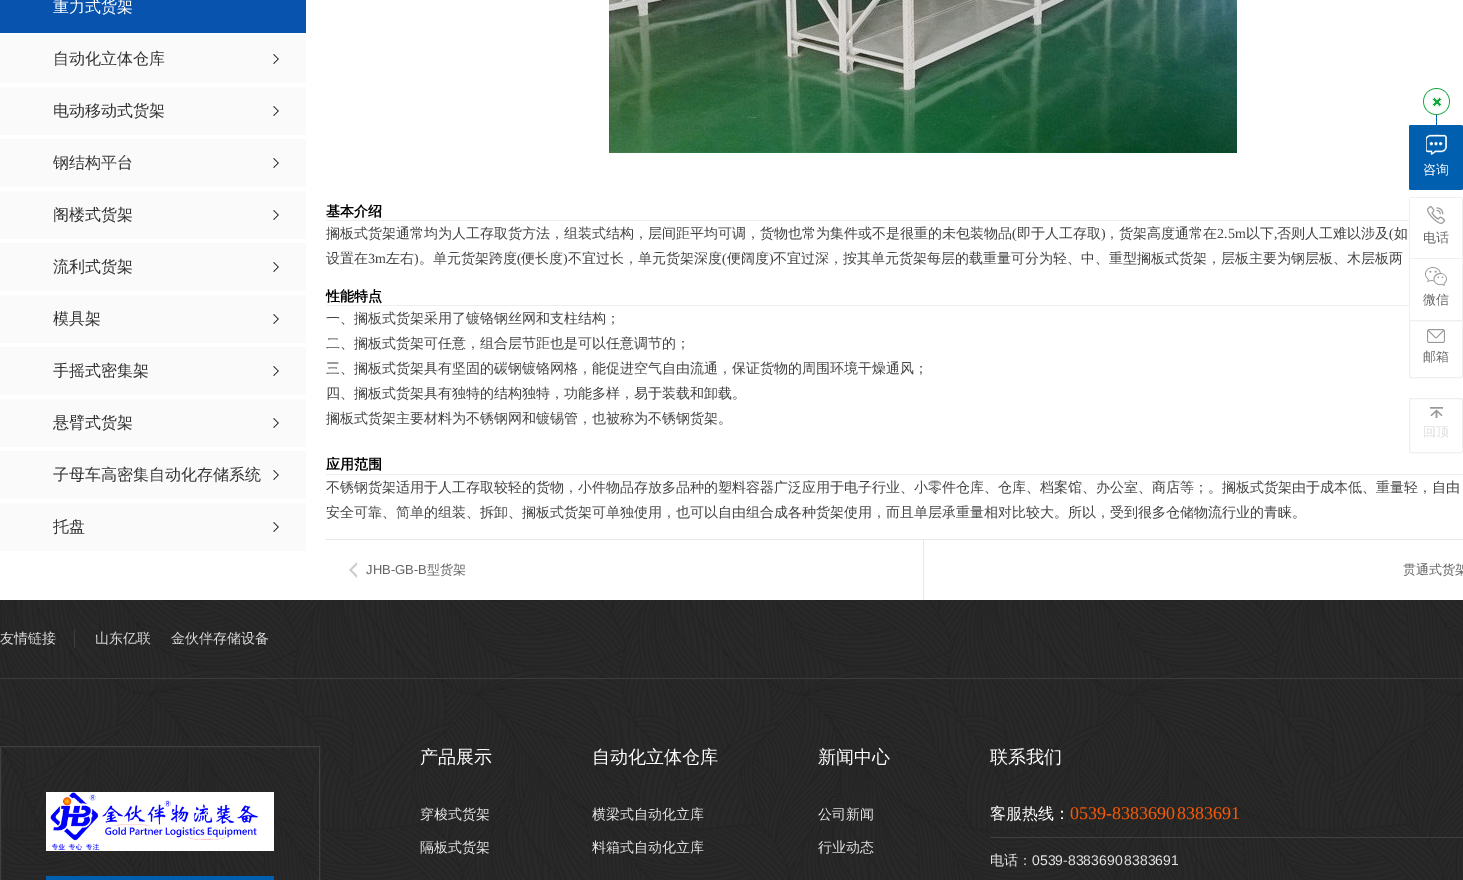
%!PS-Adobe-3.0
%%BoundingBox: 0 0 1463 880
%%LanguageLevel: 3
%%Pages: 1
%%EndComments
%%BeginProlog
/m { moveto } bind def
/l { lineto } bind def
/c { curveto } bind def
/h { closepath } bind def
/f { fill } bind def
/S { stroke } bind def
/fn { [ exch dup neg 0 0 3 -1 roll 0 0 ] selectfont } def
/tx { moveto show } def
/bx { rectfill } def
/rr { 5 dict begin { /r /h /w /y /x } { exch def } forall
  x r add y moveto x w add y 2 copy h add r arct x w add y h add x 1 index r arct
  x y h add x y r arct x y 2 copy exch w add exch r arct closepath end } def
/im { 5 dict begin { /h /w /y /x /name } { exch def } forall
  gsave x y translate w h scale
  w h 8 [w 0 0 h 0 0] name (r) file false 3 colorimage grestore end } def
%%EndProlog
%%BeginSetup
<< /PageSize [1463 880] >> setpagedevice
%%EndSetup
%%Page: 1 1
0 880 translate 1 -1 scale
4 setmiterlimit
1 setgray
0 0 1463 880 bx
0.031 0.325 0.682 setrgbcolor
0 0 306 33 bx
/WenQuanYiZenHei-Medium 16 fn
1 setgray
(重力式货架) 53 12 tx
0.98 setgray
0 35 306 48 bx
(image0.raw) 273 54 6 10 im
0.2 setgray
(自动化立体仓库) 53 64 tx
0.98 setgray
0 87 306 48 bx
(image0.raw) 273 106 6 10 im
0.2 setgray
(电动移动式货架) 53 116 tx
0.98 setgray
0 139 306 48 bx
(image0.raw) 273 158 6 10 im
0.2 setgray
(钢结构平台) 53 168 tx
0.98 setgray
0 191 306 48 bx
(image0.raw) 273 210 6 10 im
0.2 setgray
(阁楼式货架) 53 220 tx
0.98 setgray
0 243 306 48 bx
(image0.raw) 273 262 6 10 im
0.2 setgray
(流利式货架) 53 272 tx
0.98 setgray
0 295 306 48 bx
(image0.raw) 273 314 6 10 im
0.2 setgray
(模具架) 53 324 tx
0.98 setgray
0 347 306 48 bx
(image0.raw) 273 366 6 10 im
0.2 setgray
(手摇式密集架) 53 376 tx
0.98 setgray
0 399 306 48 bx
(image0.raw) 273 418 6 10 im
0.2 setgray
(悬臂式货架) 53 428 tx
0.98 setgray
0 451 306 48 bx
(image0.raw) 273 470 6 10 im
0.2 setgray
(子母车高密集自动化存储系统) 53 480 tx
0.98 setgray
0 503 306 48 bx
(image0.raw) 273 522 6 10 im
0.2 setgray
(托盘) 53 532 tx
(image1.raw) 609 0 628 153 im
/WenQuanYiZenHei-Bold 14 fn
0 setgray
(基本介绍) 326 216 tx
0.933 setgray
326 220 1083 1 bx
/WenQuanYiZenHei-Medium 14 fn
0.267 setgray
(搁板式货架通常均为人工存取货方法，组装式结构，层间距平均可调，货物也常为集件或不是很重的未包装物品) 326 238 tx
/LiberationSerif-Regular 14 fn
(\() 1012 238 tx
/WenQuanYiZenHei-Medium 14 fn
(即于人工存取) 1017 238 tx
/LiberationSerif-Regular 14 fn
(\)) 1101 238 tx
/WenQuanYiZenHei-Medium 14 fn
(，货架高度通常在) 1105 238 tx
/LiberationSerif-Regular 14 fn
(2.5m) 1217 238 tx
/WenQuanYiZenHei-Medium 14 fn
(以下) 1246 238 tx
/LiberationSerif-Regular 14 fn
(,) 1274 238 tx
/WenQuanYiZenHei-Medium 14 fn
(否则人工难以涉及) 1277 238 tx
/LiberationSerif-Regular 14 fn
(\() 1389 238 tx
/WenQuanYiZenHei-Medium 14 fn
(如) 1394 238 tx
(设置在) 326 263 tx
/LiberationSerif-Regular 14 fn
(3m) 368 263 tx
/WenQuanYiZenHei-Medium 14 fn
(左右) 386 263 tx
/LiberationSerif-Regular 14 fn
(\)) 414 263 tx
/WenQuanYiZenHei-Medium 14 fn
(。单元货架跨度) 419 263 tx
/LiberationSerif-Regular 14 fn
(\() 517 263 tx
/WenQuanYiZenHei-Medium 14 fn
(便长度) 521 263 tx
/LiberationSerif-Regular 14 fn
(\)) 563 263 tx
/WenQuanYiZenHei-Medium 14 fn
(不宜过长，单元货架深度) 568 263 tx
/LiberationSerif-Regular 14 fn
(\() 722 263 tx
/WenQuanYiZenHei-Medium 14 fn
(便阔度) 727 263 tx
/LiberationSerif-Regular 14 fn
(\)) 769 263 tx
/WenQuanYiZenHei-Medium 14 fn
(不宜过深，按其单元货架每层的载重量可分为轻、中、重型搁板式货架，层板主要为钢层板、木层板两) 773 263 tx
/WenQuanYiZenHei-Bold 14 fn
0 setgray
(性能特点) 326 301 tx
0.933 setgray
326 305 1083 1 bx
/WenQuanYiZenHei-Medium 14 fn
0.267 setgray
(一、搁板式货架采用了镀铬钢丝网和支柱结构；) 326 323 tx
(二、搁板式货架可任意，组合层节距也是可以任意调节的；) 326 348 tx
(三、搁板式货架具有坚固的碳钢镀铬网格，能促进空气自由流通，保证货物的周围环境干燥通风；) 326 373 tx
(四、搁板式货架具有独特的结构独特，功能多样，易于装载和卸载。) 326 398 tx
(搁板式货架主要材料为不锈钢网和镀锡管，也被称为不锈钢货架。) 326 423 tx
/WenQuanYiZenHei-Bold 14 fn
0 setgray
(应用范围) 326 469 tx
0.933 setgray
326 474 1137 1 bx
/WenQuanYiZenHei-Medium 14 fn
0.267 setgray
(不锈钢货架适用于人工存取较轻的货物，小件物品存放多品种的塑料容器广泛应用于电子行业、小零件仓库、仓库、档案馆、办公室、商店等；。搁板式货架由于成本低、重量轻，自由) 326 492 tx
(安全可靠、简单的组装、拆卸、搁板式货架可单独使用，也可以自由组合成各种货架使用，而且单层承重量相对比较大。所以，受到很多仓储物流行业的青睐。) 326 517 tx
0.906 setgray
326 539 1137 1 bx
0.8 setgray
357 562 m 357 578 l 349 570 l h f
1 setgray
360 562 m 360 578 l 352 570 l h f
/LiberationSans-Regular 13 fn
0.4 setgray
(JHB-GB-B) 366 574 tx
/WenQuanYiZenHei-Medium 13 fn
(型货架) 427 574 tx
0.906 setgray
923 540 1 60 bx
0.4 setgray
(贯通式货架) 1403 574 tx
(image2.raw) 1423 88 27 27 im
0 0.373 0.686 setrgbcolor
1409 125 54 65 2 rr f
1410 125 52 1 bx
1436 115 1 12 bx
1462 126 1 63 bx
1409 126 1 63 bx
(image3.raw) 1426 134 21 21 im
1 setgray
(咨询) 1423 174 tx
0.937 setgray
1410 197 52 1 bx
1462 198 1 60 bx
1409 198 1 60 bx
(image4.raw) 1427 206 18 18 im
0.4 setgray
(电话) 1423 242 tx
0.937 setgray
1409 258 54 1 bx
1462 258 1 62 bx
1409 258 1 62 bx
(image5.raw) 1425 267 22 19 im
0.4 setgray
(微信) 1423 304 tx
0.937 setgray
1409.5 320.5 m 1462.5 320.5 l 1462.5 376 l 1462.5 377 1462 377.5 1461 377.5 c 1411 377.5 l 1410 377.5 1409.5 377 1409.5 376 c h S
(image6.raw) 1427 329 18 14 im
0.4 setgray
(邮箱) 1423 361 tx
0.937 setgray
1409.5 398.5 53 54 1.5 rr S
(image7.raw) 1430 407 13 11 im
0.867 setgray
(回顶) 1423 436 tx
(image8.raw) 0 600 1463 280 im
0.235 setgray
0 678 1463 1 bx
0.247 setgray
74 630 1 18 bx
/WenQuanYiZenHei-Medium 14 fn
0.867 setgray
(友情链接) 0 643 tx
(山东亿联) 95 643 tx
(金伙伴存储设备) 171 643 tx
0.247 setgray
0.5 746.5 319 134 rectstroke
(image9.raw) 46 792 228 59 im
0 0.373 0.686 setrgbcolor
46 876 228 4 bx
/WenQuanYiZenHei-Medium 18 fn
1 setgray
(产品展示) 420 763 tx
/WenQuanYiZenHei-Medium 14 fn
0.894 setgray
(穿梭式货架) 420 819 tx
(隔板式货架) 420 852 tx
/WenQuanYiZenHei-Medium 18 fn
1 setgray
(自动化立体仓库) 592 763 tx
/WenQuanYiZenHei-Medium 14 fn
0.894 setgray
(横梁式自动化立库) 592 819 tx
(料箱式自动化立库) 592 852 tx
/WenQuanYiZenHei-Medium 18 fn
1 setgray
(新闻中心) 818 763 tx
/WenQuanYiZenHei-Medium 14 fn
0.894 setgray
(公司新闻) 818 819 tx
(行业动态) 818 852 tx
/WenQuanYiZenHei-Medium 18 fn
1 setgray
(联系我们) 990 763 tx
0.247 setgray
990 837 473 1 bx
/WenQuanYiZenHei-Medium 16 fn
1 setgray
(客服热线：) 990 819 tx
/LiberationSerif-Regular 18 fn
0.969 0.353 0.016 setrgbcolor
1070 819 m -2 0 32 (0539-8383690 8383691) widthshow
/WenQuanYiZenHei-Medium 14 fn
0.894 setgray
(电话：) 990 865 tx
/LiberationSans-Regular 14 fn
1032 865 m -2 0 32 (0539-8383690 8383691) widthshow
showpage
%%EOF
